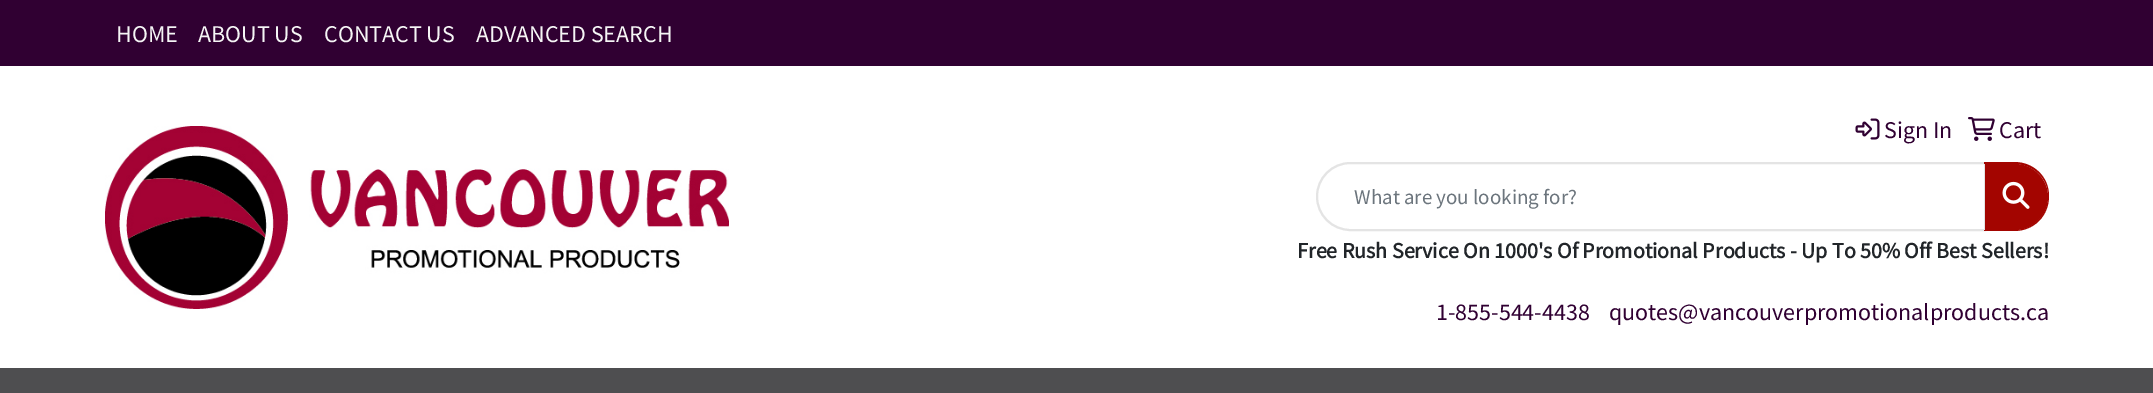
%!PS-Adobe-3.0
%%BoundingBox: 0 0 2153 393
%%LanguageLevel: 3
%%Pages: 1
%%EndComments
%%BeginProlog
/m { moveto } bind def
/l { lineto } bind def
/c { curveto } bind def
/h { closepath } bind def
/f { fill } bind def
/S { stroke } bind def
/w { setlinewidth } bind def
/fn { [ exch dup neg 0 0 3 -1 roll 0 0 ] selectfont } def
/tx { moveto show } def
/bx { rectfill } def
/im { 5 dict begin { /h /w /y /x /name } { exch def } forall
  gsave x y translate w h scale
  w h 8 [w 0 0 h 0 0] name (r) file false 3 colorimage grestore end } def
%%EndProlog
%%BeginSetup
<< /PageSize [2153 393] >> setpagedevice
%%EndSetup
%%Page: 1 1
0 393 translate 1 -1 scale
4 setmiterlimit
1 setgray
0 0 2153 393 bx
0.188 0 0.196 setrgbcolor
0 0 2153 66 bx
/SourceSansPro-Regular 24 fn
0.961 setgray
(HOME) 116 42 tx
(ABOUT US) 198 42 tx
(CONTACT US) 324 42 tx
(ADVANCED SEARCH) 476 42 tx
(image0.raw) 105 126 624 183 im
(image1.raw) 1855 118 25 22 im
0.188 0 0.196 setrgbcolor
(Sign In) 1884 138 tx
(image2.raw) 1968 117 27 24 im
(Cart) 1999 138 tx
0.894 setgray
2 w
1350.5 163 m 1985 163 l 1985 230 l 1350.5 230 l 1332 230 1317 215 1317 196.5 c 1317 178 1332 163 1350.5 163 c h S
/SourceSansPro-Regular 21 fn
0.424 0.459 0.49 setrgbcolor
(What are you looking for?) 1354 204 tx
0.639 0.02 0 setrgbcolor
1985 164 m 2015 164 l 2033 164 2048 179 2048 197 c 2048 215 2033 230 2015 230 c 1985 230 l h f
1984 162 m 2014 162 l 2034 162 2049 177 2049 196 c 2049 216 2034 231 2014 231 c 1984 231 l h 1984 164 m 2014 164 l 2033 164 2048 178 2048 196 c 2048 215 2033 230 2014 230 c 1984 230 l h eofill
(image3.raw) 2002 181 28 28 im
/SourceSansPro-Bold 22 fn
0.129 0.145 0.161 setrgbcolor
(Free Rush Service On 1000's Of Promotional Products - Up To 50% Off Best Sellers!) 1297 258 tx
/SourceSansPro-Regular 24 fn
0.188 0 0.196 setrgbcolor
(1-855-544-4438) 1436 320 tx
(quotes@vancouverpromotionalproducts.ca) 1609 320 tx
0.306 0.306 0.314 setrgbcolor
0 368 2153 25 bx
showpage
%%EOF
